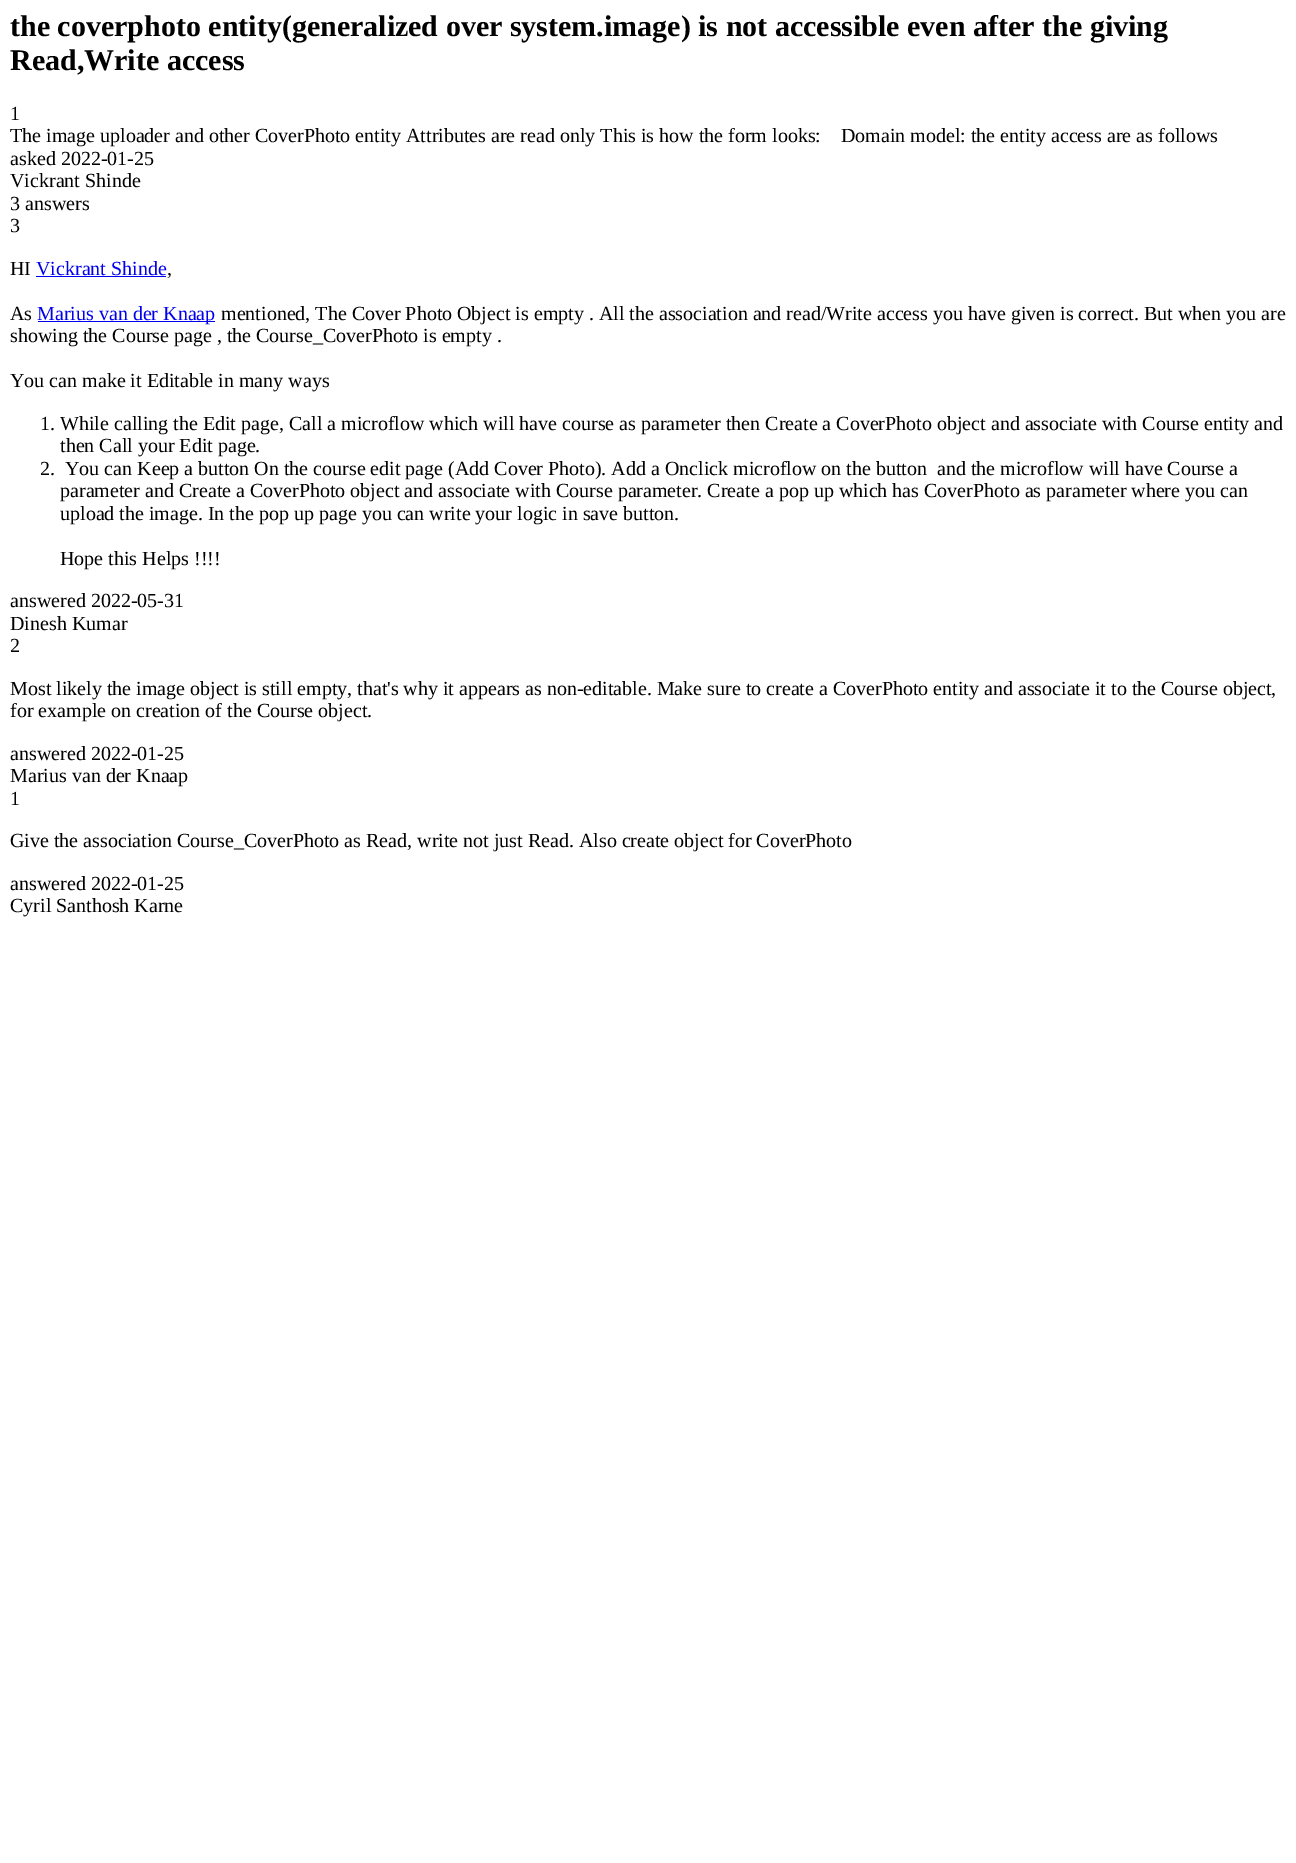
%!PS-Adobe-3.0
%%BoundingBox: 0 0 1296 1863
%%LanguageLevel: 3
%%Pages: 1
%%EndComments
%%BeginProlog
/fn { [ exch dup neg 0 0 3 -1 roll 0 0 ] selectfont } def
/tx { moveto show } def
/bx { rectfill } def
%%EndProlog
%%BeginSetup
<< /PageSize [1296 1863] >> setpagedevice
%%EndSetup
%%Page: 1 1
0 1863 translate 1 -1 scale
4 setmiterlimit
1 setgray
0 0 1296 1863 bx
/LiberationSerif-Bold 30 fn
0 setgray
(the coverphoto entity\(generalized over system.image\) is not accessible even after the giving) 10 36 tx
(Read,Write access) 10 70 tx
/LiberationSerif-Regular 20 fn
(1) 10 120 tx
(The image uploader and other CoverPhoto entity Attributes are read only This is how the form looks:    Domain model: the entity access are as follows) 10 142 tx
(asked 2022-01-25) 10 165 tx
(Vickrant Shinde) 10 187 tx
(3 answers) 10 210 tx
(3) 10 232 tx
(HI) 10 275 tx
0 0 0.933 setrgbcolor
(Vickrant Shinde) 36 275 tx
36 276 130 1 bx
0 setgray
(,) 167 275 tx
(As) 10 320 tx
0 0 0.933 setrgbcolor
38 321 177 1 bx
(Marius van der Knaap) 37 320 tx
0 setgray
(mentioned, The Cover Photo Object is empty . All the association and read/Write access you have given is correct. But when you are) 221 320 tx
(showing the Course page , the Course_CoverPhoto is empty .) 10 342 tx
(You can make it Editable in many ways) 10 387 tx
(1. While calling the Edit page, Call a microflow which will have course as parameter then Create a CoverPhoto object and associate with Course entity and) 40 430 tx
(then Call your Edit page.) 60 452 tx
(2.) 40 475 tx
(You can Keep a button On the course edit page \(Add Cover Photo\). Add a Onclick microflow on the button  and the microflow will have Course a) 65 475 tx
(parameter and Create a CoverPhoto object and associate with Course parameter. Create a pop up which has CoverPhoto as parameter where you can) 60 497 tx
(upload the image. In the pop up page you can write your logic in save button.) 60 520 tx
(Hope this Helps !!!!) 60 565 tx
(answered 2022-05-31) 10 607 tx
(Dinesh Kumar) 10 630 tx
(2) 10 652 tx
(Most likely the image object is still empty, that's why it appears as non-editable. Make sure to create a CoverPhoto entity and associate it to the Course object,) 10 695 tx
(for example on creation of the Course object.) 10 717 tx
(answered 2022-01-25) 10 760 tx
(Marius van der Knaap) 10 782 tx
(1) 10 805 tx
(Give the association Course_CoverPhoto as Read, write not just Read. Also create object for CoverPhoto) 10 847 tx
(answered 2022-01-25) 10 890 tx
(Cyril Santhosh Karne) 10 912 tx
showpage
%%EOF
